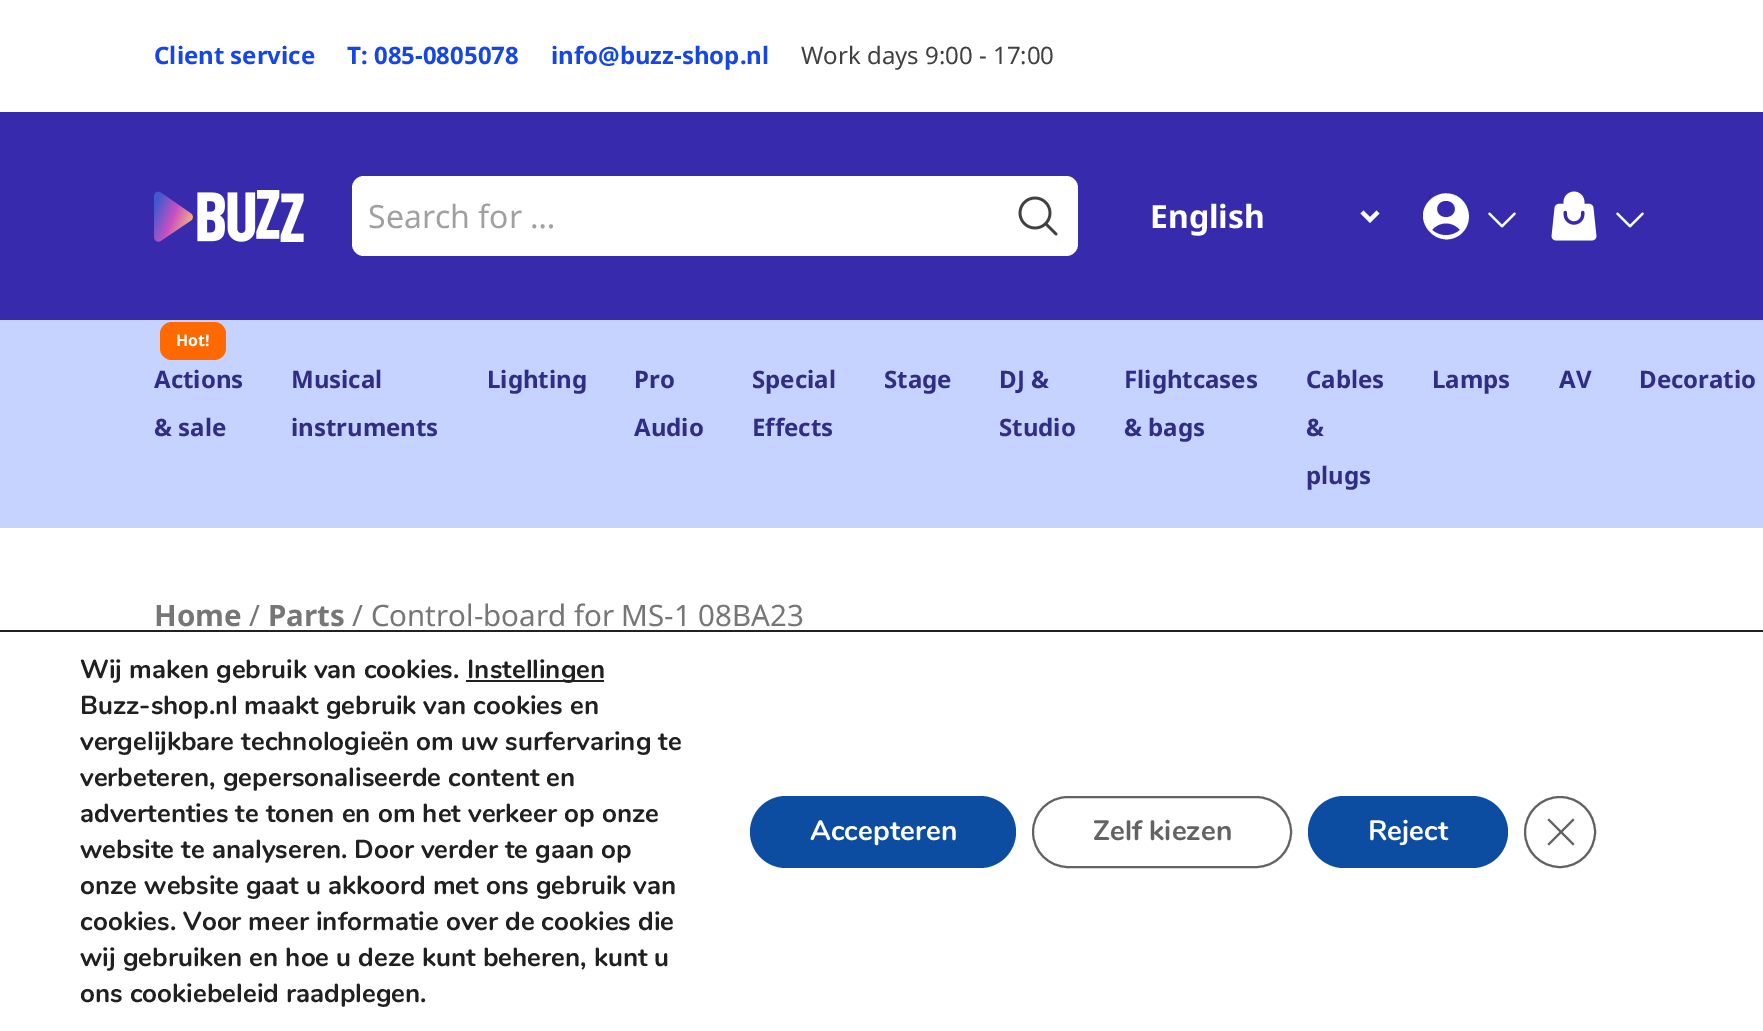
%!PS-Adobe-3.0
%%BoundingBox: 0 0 1763 1031
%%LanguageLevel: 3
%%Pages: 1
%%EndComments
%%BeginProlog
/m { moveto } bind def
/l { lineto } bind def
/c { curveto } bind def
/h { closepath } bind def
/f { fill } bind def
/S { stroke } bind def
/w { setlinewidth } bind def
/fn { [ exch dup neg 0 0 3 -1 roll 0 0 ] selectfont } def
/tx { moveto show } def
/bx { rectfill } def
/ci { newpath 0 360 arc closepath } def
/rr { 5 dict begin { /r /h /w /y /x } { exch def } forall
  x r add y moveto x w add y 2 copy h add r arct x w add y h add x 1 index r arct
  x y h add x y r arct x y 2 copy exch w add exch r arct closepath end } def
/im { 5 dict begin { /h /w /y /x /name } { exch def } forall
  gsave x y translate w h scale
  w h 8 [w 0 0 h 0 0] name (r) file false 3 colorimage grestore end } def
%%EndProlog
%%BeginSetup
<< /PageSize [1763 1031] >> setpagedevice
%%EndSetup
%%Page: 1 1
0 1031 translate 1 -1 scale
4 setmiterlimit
1 setgray
0 0 1763 1031 bx
/NotoSans-Bold 24 fn
0.078 0.278 0.902 setrgbcolor
(Client service) 154 64 tx
(T: 085-0805078) 347 64 tx
(info@buzz-shop.nl) 551 64 tx
/NotoSans-Regular 24 fn
0.251 setgray
(Work days 9:00 - 17:00) 801 64 tx
0.216 0.165 0.675 setrgbcolor
0 112 1763 208 bx
(image0.raw) 154 190 150 52 im
1 setgray
352 176 726 80 12 rr f
/NotoSans-Regular 32 fn
0.627 setgray
(Search for …) 368 228 tx
(image1.raw) 1018 196 40 40 im
1 setgray
4 w
1362 212 m 1370 220 l 1378 212 l S
/NotoSans-Bold 32 fn
(English) 1150 228 tx
1462 233 m 1478 217 1464 189 1441 194 c 1437 195 1433 197 1430 200 c 1409 221 1440 253 1462 233 c h 1432 230 m 1439 221 1453 221 1460 230 c 1452 237 1440 237 1432 230 c h 1455 209 m 1455 220 1437 220 1437 209 c 1437 198 1455 198 1455 209 c h eofill
(image2.raw) 1488 212 28 16 im
(image3.raw) 1551 191 46 50 im
(image2.raw) 1616 212 28 16 im
0.776 0.824 1 setrgbcolor
0 320 1763 208 bx
1 0.412 0 setrgbcolor
160 322 66 38 12 rr f
/NotoSans-Bold 16 fn
1 setgray
(Hot!) 176 346 tx
/NotoSans-Bold 24 fn
0.192 0.173 0.522 setrgbcolor
(Actions) 154 388 tx
(& sale) 154 436 tx
(Musical) 291 388 tx
(instruments) 291 436 tx
(Lighting) 487 388 tx
(Pro) 634 388 tx
(Audio) 634 436 tx
(Special) 752 388 tx
(Effects) 752 436 tx
(Stage) 884 388 tx
(DJ &) 999 388 tx
(Studio) 999 436 tx
(Flightcases) 1124 388 tx
(& bags) 1124 436 tx
(Cables) 1306 388 tx
(&) 1306 436 tx
(plugs) 1306 484 tx
(Lamps) 1432 388 tx
(AV) 1559 388 tx
(Decoratio) 1639 388 tx
/NotoSans-Bold 29.5 fn
0.463 setgray
(Home) 154 626 tx
/NotoSans-Regular 29.5 fn
(/) 249 626 tx
/NotoSans-Bold 29.5 fn
(Parts) 268 626 tx
/NotoSans-Regular 29.5 fn
(/ Control-board for MS-1 08BA23) 352 626 tx
0.125 setgray
0 630 1763 2 bx
/Nunito-Bold 26 fn
(Wij maken gebruik van cookies.) 80 678 tx
466 680 138 2 bx
(Instellingen) 467 678 tx
(Buzz-shop.nl maakt gebruik van cookies en) 80 714 tx
(vergelijkbare technologieën om uw surfervaring te) 80 750 tx
(verbeteren, gepersonaliseerde content en) 80 786 tx
(advertenties te tonen en om het verkeer op onze) 80 822 tx
(website te analyseren. Door verder te gaan op) 80 858 tx
(onze website gaat u akkoord met ons gebruik van) 80 894 tx
(cookies. Voor meer informatie over de cookies die) 80 930 tx
(wij gebruiken en hoe u deze kunt beheren, kunt u) 80 966 tx
(ons cookiebeleid raadplegen.) 80 1002 tx
0.047 0.302 0.635 setrgbcolor
750 796 266 72 36 rr f
/Nunito-Bold 28 fn
1 setgray
(Accepteren) 810 840 tx
0.388 setgray
2 w
1033 797 258 70 35 rr S
(Zelf kiezen) 1093 840 tx
0.047 0.302 0.635 setrgbcolor
1308 796 200 72 36 rr f
1 setgray
(Reject) 1368 840 tx
0.384 setgray
1560 832 35 ci S
1573 818.5 m 1574.5 820 l 1549 845.5 l 1547.5 844 l h f
1547.5 820 m 1549 818.5 l 1574.5 844 l 1573 845.5 l h f
showpage
%%EOF
